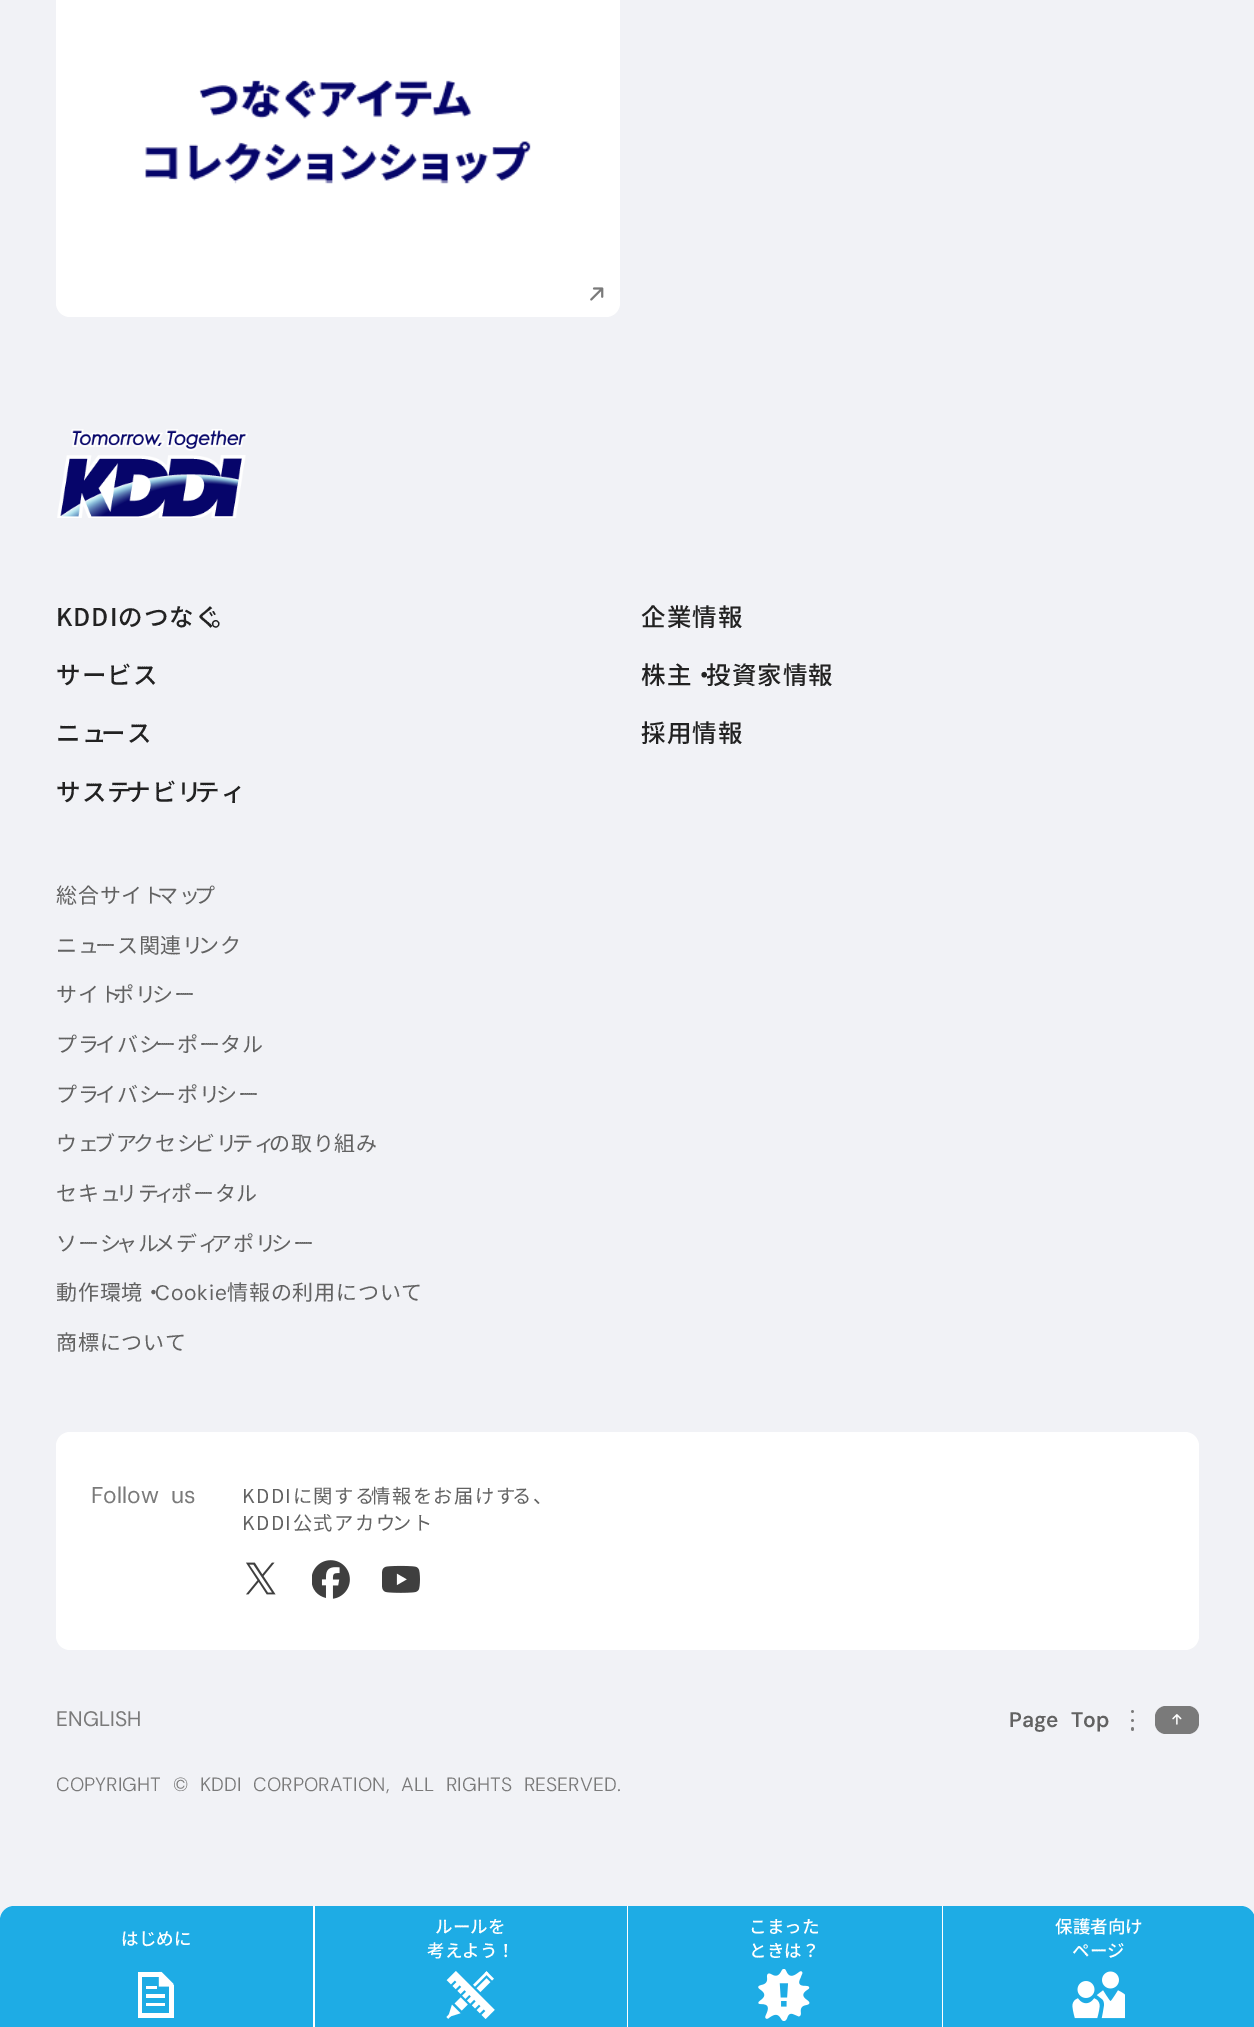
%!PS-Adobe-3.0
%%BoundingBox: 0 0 1254 2027
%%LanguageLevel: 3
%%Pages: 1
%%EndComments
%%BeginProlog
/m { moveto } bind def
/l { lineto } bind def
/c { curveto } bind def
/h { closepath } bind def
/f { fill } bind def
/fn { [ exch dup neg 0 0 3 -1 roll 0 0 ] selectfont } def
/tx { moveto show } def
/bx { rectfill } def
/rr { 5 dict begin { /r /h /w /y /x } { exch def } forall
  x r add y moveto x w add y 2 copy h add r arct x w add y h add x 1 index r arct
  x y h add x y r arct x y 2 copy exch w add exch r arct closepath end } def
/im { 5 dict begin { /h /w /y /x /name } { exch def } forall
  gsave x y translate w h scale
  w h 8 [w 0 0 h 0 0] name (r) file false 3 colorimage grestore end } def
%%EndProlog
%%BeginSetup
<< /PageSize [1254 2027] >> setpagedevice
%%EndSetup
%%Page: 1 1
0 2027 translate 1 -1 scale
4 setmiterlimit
0.945 0.949 0.965 setrgbcolor
0 0 1254 2027 bx
1 setgray
56 -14 564 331 14 rr f
(image0.raw) 145 80 386 104 im
(image1.raw) 590 287 14 14 im
(image2.raw) 57 429 191 89 im
/NotoSansJP-Medium 24.5 fn
0.133 setgray
56 626 m 1 0 (KDDIのつなぐ) ashow
211 626 m 1 0 (。) ashow
56 684 m 1 0 (サービス) ashow
56 742 m 1 0 (ニュ) ashow
101 742 m 1 0 (ース) ashow
56 801 m 1 0 (サステ) ashow
126 801 m 1 0 (ナビリ) ashow
195 801 m 1 0 (ティ) ashow
641 626 m 1 0 (企業情報) ashow
641 684 m 1 0 (株主・) ashow
706 684 m 1 0 (投資家情報) ashow
641 742 m 1 0 (採用情報) ashow
/NotoSansJP-Regular 21 fn
0.384 setgray
56 903 m 0.8 0 (総合サイト) ashow
157 903 m 0.8 0 (マッ) ashow
194 903 m 0.8 0 (プ) ashow
56 953 m 0.8 0 (ニュ) ashow
95 953 m 0.8 0 (ース関連リ) ashow
198 953 m 0.8 0 (ンク) ashow
56 1002 m 0.8 0 (サイト) ashow
113 1002 m 0.8 0 (ポリ) ashow
152 1002 m 0.8 0 (シー) ashow
56 1052 m 0.8 0 (プラ) ashow
95 1052 m 0.8 0 (イバシ) ashow
155 1052 m 0.8 0 (ーポータル) ashow
56 1102 m 0.8 0 (プラ) ashow
95 1102 m 0.8 0 (イバシ) ashow
155 1102 m 0.8 0 (ーポリ) ashow
216 1102 m 0.8 0 (シー) ashow
56 1151 m 0.8 0 (ウェ) ashow
94 1151 m 0.8 0 (ブア) ashow
133 1151 m 0.8 0 (クセシ) ashow
194 1151 m 0.8 0 (ビリ) ashow
232 1151 m 0.8 0 (ティ) ashow
269 1151 m 0.8 0 (の取り組み) ashow
56 1201 m 0.8 0 (セキュ) ashow
116 1201 m 0.8 0 (リテ) ashow
154 1201 m 0.8 0 (ィ) ashow
171 1201 m 0.8 0 (ポータル) ashow
56 1251 m 0.8 0 (ソーシ) ashow
116 1251 m 0.8 0 (ャル) ashow
154 1251 m 0.8 0 (メディ) ashow
211 1251 m 0.8 0 (アポリ) ashow
271 1251 m 0.8 0 (シー) ashow
56 1300 m 0.8 0 (動作環境・) ashow
/DMSans-Regular 21 fn
155 1300 m 0.8 0 (Cookie) ashow
/NotoSansJP-Regular 21 fn
227 1300 m 0.8 0 (情報の利用について) ashow
56 1350 m 0.8 0 (商標について) ashow
1 setgray
56 1432 1143 218 14 rr f
/DMSans-Regular 22.75 fn
0.478 setgray
91 1503 m 6 0 32 (Follow us) widthshow
/NotoSansJP-Regular 19.25 fn
0.384 setgray
242 1503 m 1.5 0 (KDDIに関する) ashow
371 1503 m 1.5 0 (情報をお届けす) ashow
512 1503 m 1.5 0 (る、) ashow
242 1530 m 1.5 0 (KDDI公式アカウ) ashow
392 1530 m 1.5 0 (ント) ashow
(image3.raw) 246 1562 30 33 im
(image4.raw) 312 1560 38 39 im
(image5.raw) 382 1565 38 28 im
/DMSans-Regular 21 fn
0.478 setgray
(ENGLISH) 56 1726 tx
/DMSans-SemiBold 21 fn
0.384 setgray
1009 1727 m 7 0 32 (Page Top) widthshow
(image6.raw) 1131 1710 3 21 im
0.478 setgray
1155 1706 44 28 11 rr f
(image7.raw) 1172 1714 10 11 im
/DMSans-Light 19.25 fn
56 1791 m 6.5 0 32 (COPYRIGHT © KDDI CORPORATION, ALL RIGHTS RESERVED.) widthshow
1 setgray
14 1906 m 1241 1906 l 1248.5 1906 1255 1912.5 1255 1920 c 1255 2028 l 0 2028 l 0 1920 l 0 1912.5 6.5 1906 14 1906 c h f
0.118 0.675 0.898 setrgbcolor
14 1906 m 313 1906 l 313 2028 l 0 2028 l 0 1920 l 0 1912.5 6.5 1906 14 1906 c h f
/NotoSansJP-Medium 17.5 fn
1 setgray
(はじめに) 121 1945 tx
(image8.raw) 138 1971 36 47 im
0.118 0.675 0.898 setrgbcolor
315 1906 312 121 bx
1 setgray
(ルールを) 435 1933 tx
(考えよう！) 427 1957 tx
(image9.raw) 446 1971 49 48 im
0.118 0.675 0.898 setrgbcolor
628 1906 314 121 bx
1 setgray
(こまった) 749 1933 tx
(ときは？) 749 1957 tx
(image10.raw) 758 1969 52 52 im
0.118 0.675 0.898 setrgbcolor
943 1906 m 1241 1906 l 1248.5 1906 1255 1912.5 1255 1920 c 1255 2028 l 943 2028 l h f
1 setgray
(保護者向け) 1055 1933 tx
(ページ) 1072 1957 tx
(image11.raw) 1072 1971 53 48 im
showpage
%%EOF
